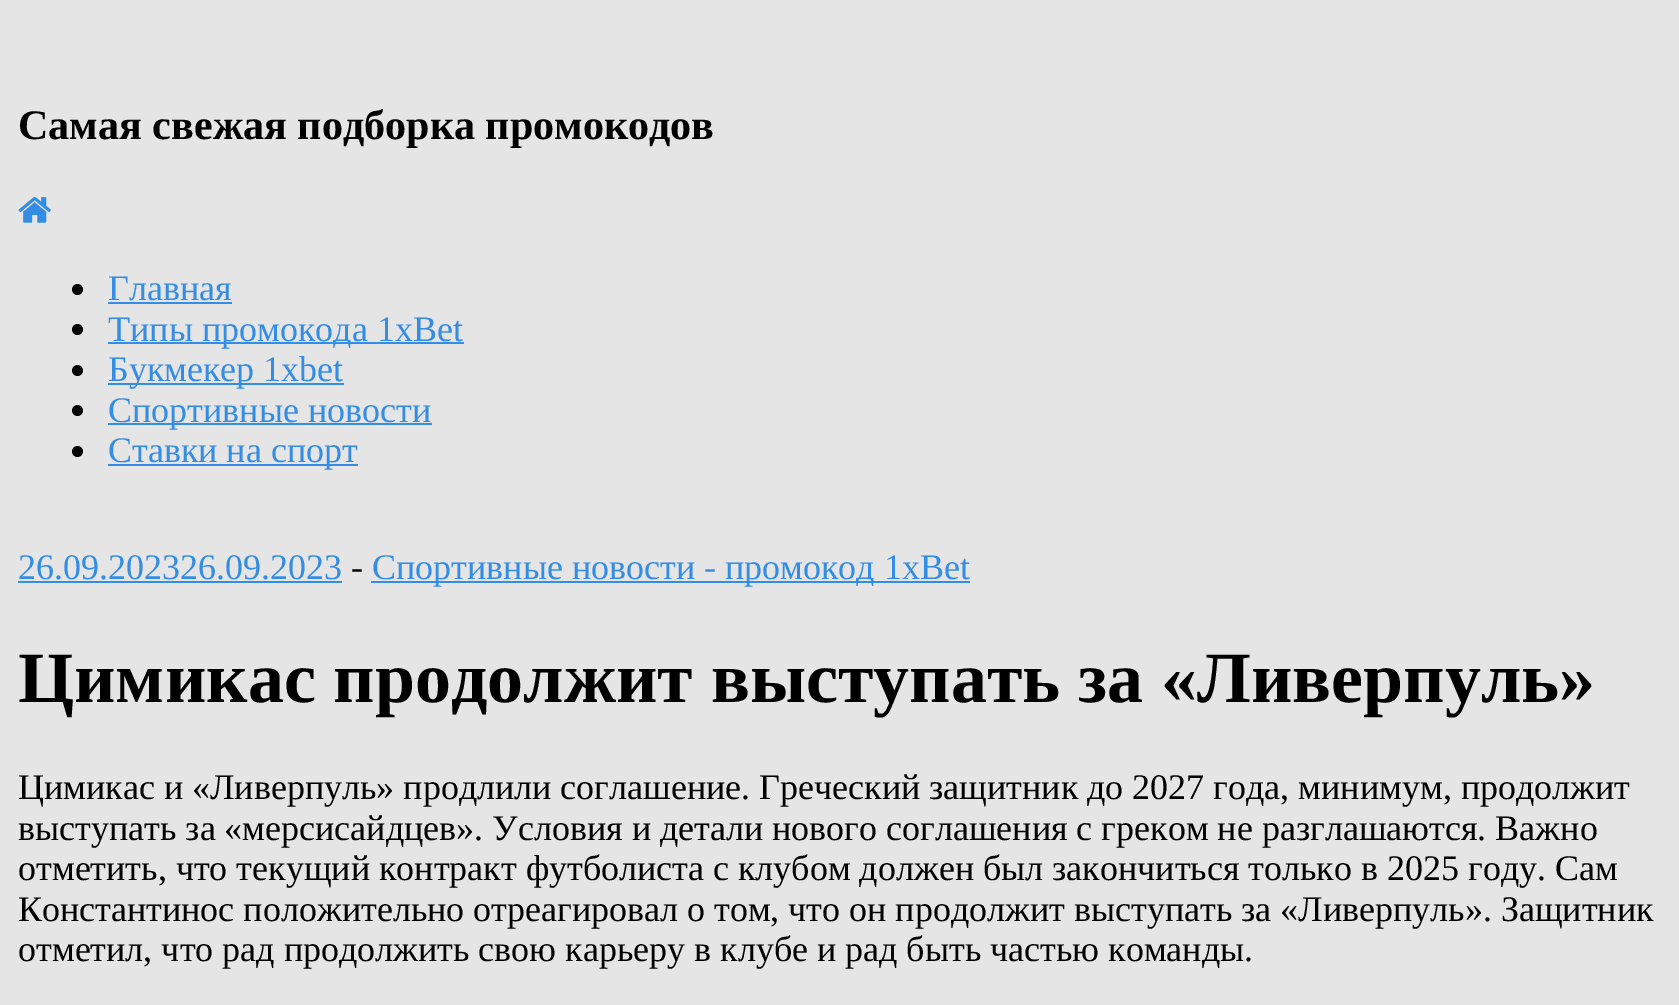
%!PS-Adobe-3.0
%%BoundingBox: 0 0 1679 1005
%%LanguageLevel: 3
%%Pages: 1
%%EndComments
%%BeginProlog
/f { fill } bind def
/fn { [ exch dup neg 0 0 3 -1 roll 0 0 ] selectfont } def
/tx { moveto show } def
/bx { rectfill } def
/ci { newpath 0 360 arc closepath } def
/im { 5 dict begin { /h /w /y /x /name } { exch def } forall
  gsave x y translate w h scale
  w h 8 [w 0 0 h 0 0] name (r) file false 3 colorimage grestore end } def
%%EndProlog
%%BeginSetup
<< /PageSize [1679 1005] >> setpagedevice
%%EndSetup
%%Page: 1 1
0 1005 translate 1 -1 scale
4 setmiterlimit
0.898 setgray
0 0 1679 1005 bx
/LiberationSerif-Bold 42.1 fn
0 setgray
(Самая свежая подборка промокодов) 18 139 tx
(image0.raw) 18 197 33 26 im
77.5 289.5 5.5 ci f
/LiberationSerif-Regular 36 fn
0.204 0.553 0.898 setrgbcolor
(Главная) 108 300 tx
108 302 124 2 bx
0 setgray
77.5 329.5 5.5 ci f
0.204 0.553 0.898 setrgbcolor
108 342 356 2 bx
(Типы промокода 1xBet) 108 341 tx
0 setgray
77.5 370.5 5.5 ci f
0.204 0.553 0.898 setrgbcolor
108 383 236 2 bx
(Букмекер 1xbet) 108 381 tx
0 setgray
77.5 410.5 5.5 ci f
0.204 0.553 0.898 setrgbcolor
108 423 324 2 bx
(Спортивные новости) 108 422 tx
0 setgray
77.5 451.5 5.5 ci f
0.204 0.553 0.898 setrgbcolor
108 464 250 2 bx
(Ставки на спорт) 108 462 tx
(26.09.202326.09.2023) 18 579 tx
18 581 324 2 bx
0 setgray
(-) 351 579 tx
0.204 0.553 0.898 setrgbcolor
371 581 599 2 bx
(Спортивные новости - промокод 1xBet) 372 579 tx
/LiberationSerif-Bold 72 fn
0 setgray
(Цимикас продолжит выступать за «Ливерпуль») 18 702 tx
/LiberationSerif-Regular 36 fn
(Цимикас и «Ливерпуль» продлили соглашение. Греческий защитник до 2027 года, минимум, продолжит) 18 799 tx
(выступать за «мерсисайдцев». Условия и детали нового соглашения с греком не разглашаются. Важно) 18 840 tx
(отметить, что текущий контракт футболиста с клубом должен был закончиться только в 2025 году. Сам) 18 880 tx
(Константинос положительно отреагировал о том, что он продолжит выступать за «Ливерпуль». Защитник) 18 921 tx
(отметил, что рад продолжить свою карьеру в клубе и рад быть частью команды.) 18 961 tx
showpage
%%EOF
